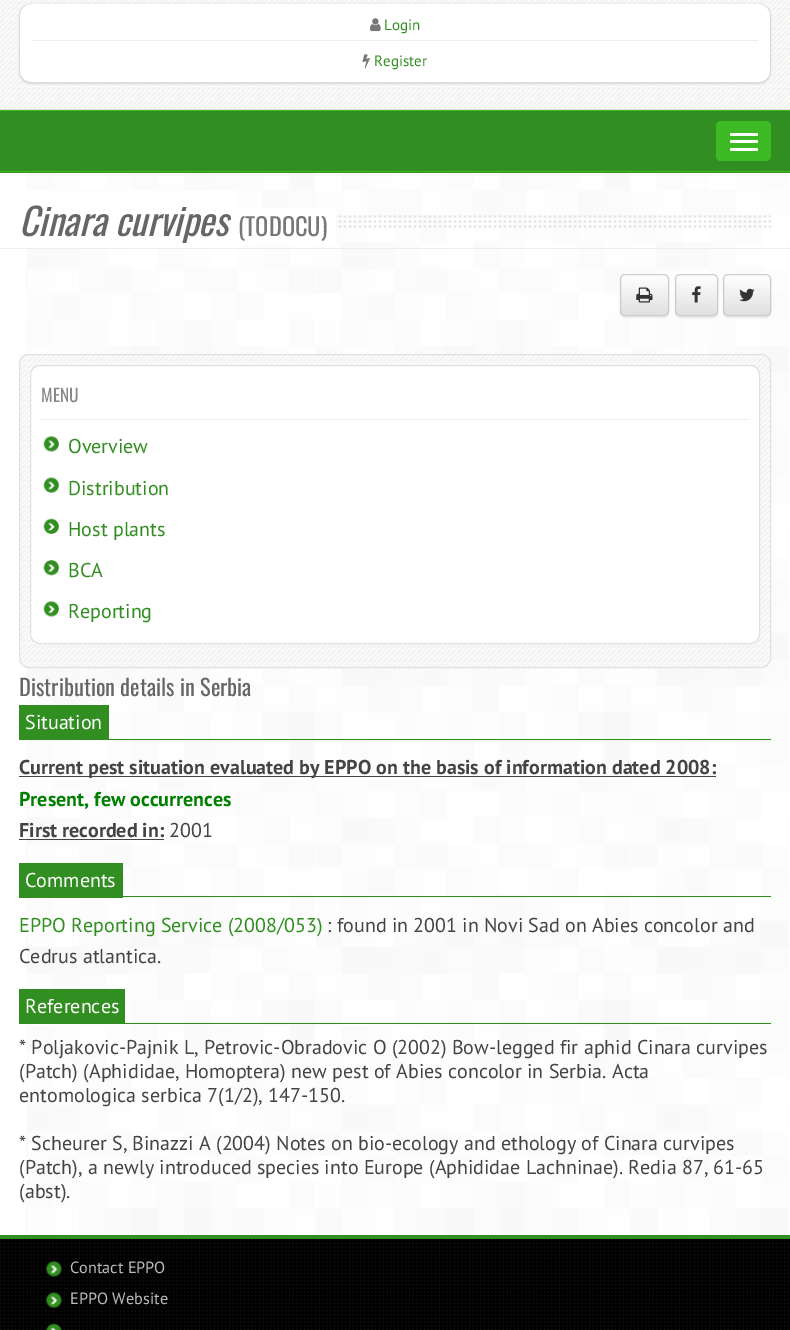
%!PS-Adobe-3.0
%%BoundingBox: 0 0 790 1330
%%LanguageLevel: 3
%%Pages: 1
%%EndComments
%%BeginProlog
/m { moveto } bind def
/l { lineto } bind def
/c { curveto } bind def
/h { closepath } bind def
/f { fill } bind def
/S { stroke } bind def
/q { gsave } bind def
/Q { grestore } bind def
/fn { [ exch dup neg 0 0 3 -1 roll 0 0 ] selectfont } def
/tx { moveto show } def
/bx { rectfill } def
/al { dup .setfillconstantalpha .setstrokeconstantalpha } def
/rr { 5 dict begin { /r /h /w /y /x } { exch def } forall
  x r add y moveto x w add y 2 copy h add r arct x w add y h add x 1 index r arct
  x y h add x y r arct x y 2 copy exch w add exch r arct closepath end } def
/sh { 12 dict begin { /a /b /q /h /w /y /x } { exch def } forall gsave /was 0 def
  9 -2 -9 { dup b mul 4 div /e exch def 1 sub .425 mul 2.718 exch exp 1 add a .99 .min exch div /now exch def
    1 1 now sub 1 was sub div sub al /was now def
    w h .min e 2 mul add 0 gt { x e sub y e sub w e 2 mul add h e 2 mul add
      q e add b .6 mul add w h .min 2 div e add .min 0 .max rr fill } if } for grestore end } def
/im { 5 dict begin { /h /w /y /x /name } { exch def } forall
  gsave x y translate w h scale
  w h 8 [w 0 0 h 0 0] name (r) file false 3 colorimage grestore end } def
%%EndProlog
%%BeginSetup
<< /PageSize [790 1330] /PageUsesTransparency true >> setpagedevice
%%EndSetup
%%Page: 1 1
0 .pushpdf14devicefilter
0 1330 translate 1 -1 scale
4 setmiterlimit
1 setgray
0 0 790 1330 bx
(image0.raw) 26 173 763 1062 im
(image1.raw) 0 0 790 109 im
0.867 setgray
0 109 790 1 bx
19 4 752 80 13 1 1 sh
1 setgray
19 4 752 80 13 rr f
0.867 setgray
31 4 m 759 4 l 766 4 771 9 771 16 c 771 71 l 771 78 766 84 759 84 c 31 84 l 24 84 19 78 19 71 c 19 16 l 19 9 24 4 31 4 c h 31 4 m 759 4 l 765 4 770 9 770 16 c 770 71 l 770 77 765 82 759 82 c 31 82 l 25 82 20 77 20 71 c 20 16 l 20 9 25 4 31 4 c h eofill
(image2.raw) 370 18 11 14 im
/PTSans-Regular 15 fn
0.192 0.557 0.125 setrgbcolor
(Login) 384 30 tx
0.933 setgray
33 40 725 1 bx
(image3.raw) 362 54 8 15 im
0.192 0.557 0.125 setrgbcolor
(Register) 374 66 tx
0 111 790 62 bx
0.243 0.729 0.145 setrgbcolor
0 110 790 1 bx
0 171 790 1 bx
716 121 55 40 5 rr f
1 setgray
730 133 28 3 1.5 rr f
730 140 28 3 1.5 rr f
730 148 28 3 1.5 rr f
0.933 setgray
0 248 790 1 bx
(image4.raw) 336 215 435 13 im
1 setgray
26 191 212 57 bx
/Oswald-Italic 37.5 fn
0.4 setgray
(Cinara curvipes) 19 236 tx
1 setgray
238 208 98 36 bx
/Oswald-Regular 24.5 fn
0.467 setgray
(\(TODOCU\)) 238 236 tx
0 setgray
620 275 49 43 5 0.5 0.07 sh
q
620 274 49 42 5 rr clip newpath
q 620 275 m 669 275 l 669 315 l 620 315 l h clip newpath
<< /ShadingType 2 /ColorSpace /DeviceRGB /Coords [644 275 644 315] /Extend [true true] /Function << /FunctionType 2 /Domain [0 1] /C0 [1 1 1] /C1 [0.878 0.878 0.878] /N 1 >> >> shfill Q
Q
0.8 setgray
620.5 274.5 48 41 4.5 rr S
(image5.raw) 636 287 17 16 im
0 setgray
675 275 43 43 5 0.5 0.07 sh
q
675 274 43 42 5 rr clip newpath
q 675 275 m 718 275 l 718 315 l 675 315 l h clip newpath
<< /ShadingType 2 /ColorSpace /DeviceRGB /Coords [696 275 696 315] /Extend [true true] /Function << /FunctionType 2 /Domain [0 1] /C0 [1 1 1] /C1 [0.878 0.878 0.878] /N 1 >> >> shfill Q
Q
0.8 setgray
675.5 274.5 42 41 4.5 rr S
(image6.raw) 692 286 9 17 im
0 setgray
723 275 48 43 5 0.5 0.07 sh
q
723 274 48 42 5 rr clip newpath
q 723 275 m 771 275 l 771 315 l 723 315 l h clip newpath
<< /ShadingType 2 /ColorSpace /DeviceRGB /Coords [747 275 747 315] /Extend [true true] /Function << /FunctionType 2 /Domain [0 1] /C0 [1 1 1] /C1 [0.878 0.878 0.878] /N 1 >> >> shfill Q
Q
0.8 setgray
723.5 274.5 47 41 4.5 rr S
(image7.raw) 739 288 16 14 im
(image8.raw) 19 354 752 314 im
0.882 setgray
19.5 354.5 751 313 9.5 rr S
1 setgray
30.5 365.5 729 278 9.5 rr q f Q
0.882 setgray
S
0.933 setgray
41 419 708 1 bx
/Oswald-Regular 17.5 fn
0.533 setgray
(MENU) 41 402 tx
(image9.raw) 43 436 16 16 im
/PTSans-Regular 20 fn
0.192 0.557 0.125 setrgbcolor
(Overview) 68 453 tx
(image10.raw) 43 477 16 16 im
(Distribution) 68 495 tx
(image11.raw) 43 518 16 16 im
(Host plants) 68 536 tx
(image12.raw) 43 560 16 16 im
(BCA) 68 577 tx
(image9.raw) 43 601 16 16 im
(Reporting) 68 618 tx
/Oswald-Regular 22.5 fn
0.4 setgray
(Distribution details in Serbia) 19 696 tx
0.192 0.557 0.125 setrgbcolor
109 739 662 1 bx
19 705 90 35 bx
/PTSans-Regular 20 fn
1 setgray
(Situation) 25 729 tx
0.267 setgray
19 776 697 1 bx
/PTSans-Bold 20 fn
(Current pest situation evaluated by EPPO on the basis of information dated 2008:) 19 774 tx
0 0.502 0 setrgbcolor
(Present, few occurrences) 19 806 tx
0.267 setgray
(First recorded in:) 19 837 tx
19 839 145 1 bx
/PTSans-Regular 20 fn
(2001) 169 837 tx
0.192 0.557 0.125 setrgbcolor
123 896 648 1 bx
19 863 104 35 bx
1 setgray
(Comments) 25 887 tx
0.192 0.557 0.125 setrgbcolor
(EPPO Reporting Service \(2008/053\)) 19 932 tx
0.267 setgray
(: found in 2001 in Novi Sad on Abies concolor and) 327 932 tx
(Cedrus atlantica.) 19 963 tx
0.192 0.557 0.125 setrgbcolor
125 1023 646 1 bx
19 989 106 35 bx
1 setgray
(References) 25 1013 tx
0.267 setgray
(* Poljakovic-Pajnik L, Petrovic-Obradovic O \(2002\) Bow-legged fir aphid Cinara curvipes) 19 1054 tx
(\(Patch\) \(Aphididae, Homoptera\) new pest of Abies concolor in Serbia. Acta) 19 1078 tx
(entomologica serbica 7\(1/2\), 147-150.) 19 1102 tx
(* Scheurer S, Binazzi A \(2004\) Notes on bio-ecology and ethology of Cinara curvipes) 19 1150 tx
(\(Patch\), a newly introduced species into Europe \(Aphididae Lachninae\). Redia 87, 61-65) 19 1174 tx
(\(abst\).) 19 1198 tx
(image13.raw) 0 1239 790 91 im
0.192 0.557 0.125 setrgbcolor
0 1235 790 4 bx
(image14.raw) 46 1261 16 16 im
/PTSans-Regular 16.25 fn
0.733 setgray
(Contact EPPO) 70 1273 tx
(image15.raw) 46 1292 16 16 im
(EPPO Website) 70 1304 tx
(image16.raw) 46 1323 16 7 im
.poppdf14devicefilter showpage
%%EOF
